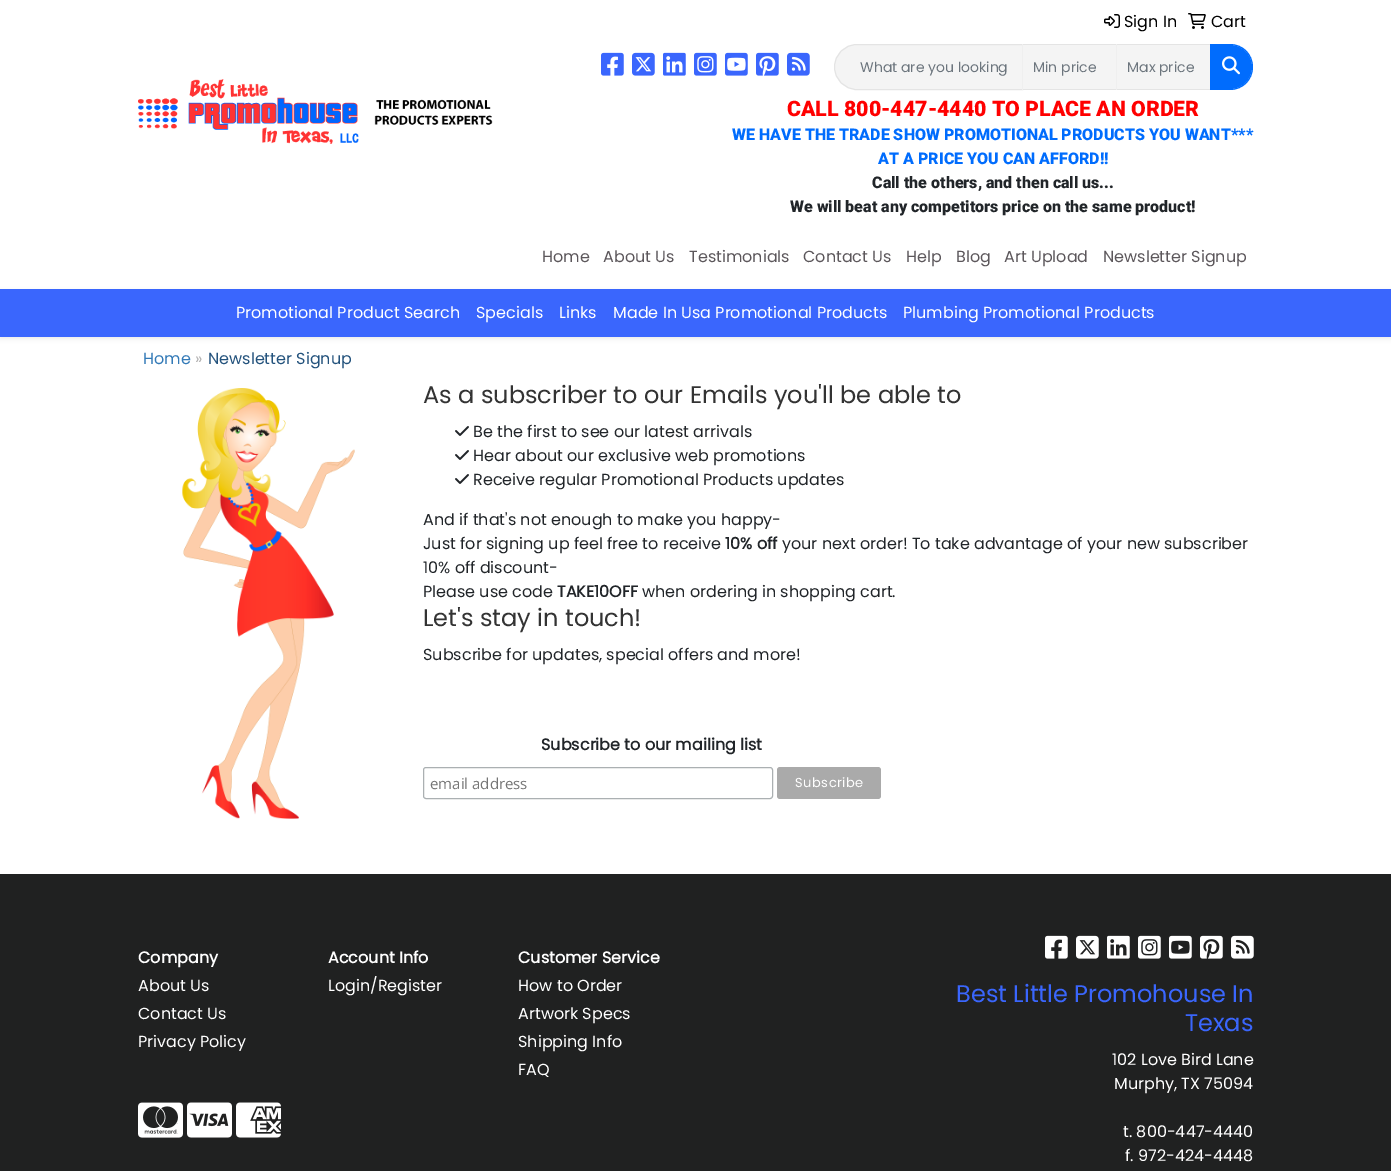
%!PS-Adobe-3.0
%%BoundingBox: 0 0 1391 1171
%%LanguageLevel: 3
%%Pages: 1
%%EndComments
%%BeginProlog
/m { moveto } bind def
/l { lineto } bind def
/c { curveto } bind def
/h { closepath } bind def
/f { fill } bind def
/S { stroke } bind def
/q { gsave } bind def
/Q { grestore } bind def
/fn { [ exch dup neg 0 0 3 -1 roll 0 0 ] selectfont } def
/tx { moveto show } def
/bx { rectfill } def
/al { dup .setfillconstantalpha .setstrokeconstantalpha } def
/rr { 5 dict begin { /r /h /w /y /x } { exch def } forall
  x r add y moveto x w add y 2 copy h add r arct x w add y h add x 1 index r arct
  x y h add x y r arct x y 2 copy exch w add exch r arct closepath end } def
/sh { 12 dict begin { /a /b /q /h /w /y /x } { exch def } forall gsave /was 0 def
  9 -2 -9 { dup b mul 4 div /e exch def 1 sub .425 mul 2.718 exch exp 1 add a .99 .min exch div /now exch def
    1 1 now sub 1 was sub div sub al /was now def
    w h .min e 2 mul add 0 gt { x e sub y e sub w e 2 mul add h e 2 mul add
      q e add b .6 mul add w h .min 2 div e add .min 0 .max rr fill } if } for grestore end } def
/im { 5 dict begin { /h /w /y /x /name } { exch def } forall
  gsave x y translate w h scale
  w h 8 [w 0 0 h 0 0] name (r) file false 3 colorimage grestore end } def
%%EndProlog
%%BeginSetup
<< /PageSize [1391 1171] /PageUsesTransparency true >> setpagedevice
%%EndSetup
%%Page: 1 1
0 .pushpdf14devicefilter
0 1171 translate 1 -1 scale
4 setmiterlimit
1 setgray
0 0 1391 1171 bx
(image0.raw) 1104 14 16 14 im
/Poppins-Regular 16 fn
0 setgray
(Sign In) 1124 27 tx
(image1.raw) 1188 13 18 16 im
(Cart) 1211 27 tx
(image2.raw) 138 79 355 65 im
(image3.raw) 601 52 23 24 im
(image4.raw) 632 52 23 24 im
(image5.raw) 663 52 23 24 im
(image6.raw) 694 52 23 24 im
(image7.raw) 725 52 23 24 im
(image8.raw) 756 52 23 24 im
(image9.raw) 787 52 23 24 im
0.957 setgray
857 44.5 m 1022.5 44.5 l 1022.5 89.5 l 857 89.5 l 844.5 89.5 834.5 79.5 834.5 67 c 834.5 54.5 844.5 44.5 857 44.5 c h q f Q
0.894 setgray
S
/Poppins-Regular 14 fn
0.424 0.459 0.49 setrgbcolor
(What are you looking) 860 72 tx
0.957 setgray
1023 45 93 44 bx
0.894 setgray
1022 44 189 1 bx
1022 89 189 1 bx
0.937 setgray
1022 44 1 46 bx
0.424 0.459 0.49 setrgbcolor
(Min price) 1033 72 tx
0.957 setgray
1117 45 93 44 bx
0.937 setgray
1116 44 1 46 bx
0.424 0.459 0.49 setrgbcolor
(Max price) 1127 72 tx
0 0.424 0.992 setrgbcolor
1210 45 m 1230 45 l 1242 45 1252 55 1252 67 c 1252 79 1242 89 1230 89 c 1210 89 l h f
1210 44 m 1230 44 l 1243 44 1253 54 1253 67 c 1253 80 1243 90 1230 90 c 1210 90 l h 1210 45 m 1230 45 l 1242 45 1252 55 1252 67 c 1252 79 1242 89 1230 89 c 1210 89 l h eofill
(image10.raw) 1222 56 18 19 im
/Roboto-Black 21.3 fn
1 0 0 setrgbcolor
(CALL 800-447-4440 TO PLACE AN ORDER) 787 116 tx
/Roboto-Black 16 fn
0 0.424 0.992 setrgbcolor
(WE HAVE THE TRADE SHOW PROMOTIONAL PRODUCTS YOU WANT***) 732 140 tx
(AT A PRICE YOU CAN AFFORD!!) 878 164 tx
0.129 0.145 0.161 setrgbcolor
(Call the others, and then call us...) 872 188 tx
(We will beat any competitors price on the same product!) 790 212 tx
/Poppins-Regular 16 fn
0.361 0.341 0.357 setrgbcolor
(Home) 542 262 tx
(About Us) 603 262 tx
(Testimonials) 689 262 tx
(Contact Us) 803 262 tx
(Help) 906 262 tx
(Blog) 956 262 tx
(Art Upload) 1004 262 tx
(Newsletter Signup) 1103 262 tx
0 setgray
0 291 1391 48 0 2 0.07 sh
0.227 0.4 0.992 setrgbcolor
0 289 1391 48 bx
1 setgray
(Promotional Product Search) 236 318 tx
(Specials) 476 318 tx
(Links) 559 318 tx
(Made In Usa Promotional Products) 613 318 tx
(Plumbing Promotional Products) 903 318 tx
0.2 0.478 0.718 setrgbcolor
(Home) 143 364 tx
0.698 0.694 0.694 setrgbcolor
(») 195 364 tx
0.137 0.322 0.486 setrgbcolor
(Newsletter Signup) 208 364 tx
(image11.raw) 182 388 173 431 im
/Poppins-Regular 24 fn
0.2 setgray
(As a subscriber to our Emails you'll be able to) 423 403 tx
(image12.raw) 455 426 14 10 im
/Poppins-Regular 16 fn
0.129 0.145 0.161 setrgbcolor
(Be the first to see our latest arrivals) 473 437 tx
(image12.raw) 455 450 14 10 im
(Hear about our exclusive web promotions) 473 461 tx
(image12.raw) 455 474 14 10 im
(Receive regular Promotional Products updates) 473 485 tx
(And if that's not enough to make you happy-) 423 525 tx
(Just for signing up feel free to receive) 423 549 tx
/Poppins-Bold 16 fn
(10% off) 725 549 tx
/Poppins-Regular 16 fn
(your next order! To take advantage of your new subscriber) 782 549 tx
(10% off discount-) 423 573 tx
(Please use code) 423 597 tx
/Poppins-Bold 16 fn
(TAKE10OFF) 557 597 tx
/Poppins-Regular 16 fn
(when ordering in shopping cart.) 642 597 tx
/Poppins-Regular 24 fn
0.2 setgray
(Let's stay in touch!) 423 626 tx
/Poppins-Regular 16 fn
0.129 0.145 0.161 setrgbcolor
(Subscribe for updates, special offers and more!) 423 660 tx
/Poppins-Bold 16 fn
(Subscribe to our mailing list) 541 750 tx
0.671 0.69 0.698 setrgbcolor
423.5 767.5 349 31 2.5 rr S
/OpenSans-Regular 15 fn
0.459 setgray
(email address) 430 789 tx
0.667 setgray
777 767 104 32 3 rr f
/Poppins-Regular 13 fn
1 setgray
795 787 m 0.5 0 (Subscribe) ashow
0.125 0.129 0.129 setrgbcolor
0 874 1391 297 bx
/Poppins-Bold 16 fn
1 setgray
(Company) 138 963 tx
/Poppins-Regular 16 fn
(About Us) 138 991 tx
(Contact Us) 138 1019 tx
(Privacy Policy) 138 1047 tx
/Poppins-Bold 16 fn
(Account Info) 328 963 tx
/Poppins-Regular 16 fn
(Login/Register) 328 991 tx
/Poppins-Bold 16 fn
(Customer Service) 518 963 tx
/Poppins-Regular 16 fn
(How to Order) 518 991 tx
(Artwork Specs) 518 1019 tx
(Shipping Info) 518 1047 tx
(FAQ) 518 1075 tx
(image13.raw) 138 1102 45 36 im
(image14.raw) 187 1102 45 36 im
(image15.raw) 236 1102 45 36 im
(image16.raw) 1045 935 23 24 im
(image17.raw) 1076 935 23 24 im
(image18.raw) 1107 935 23 24 im
(image19.raw) 1138 935 23 24 im
(image20.raw) 1169 935 23 24 im
(image21.raw) 1200 935 23 24 im
(image22.raw) 1231 935 23 24 im
/Poppins-Regular 24 fn
0.227 0.4 0.992 setrgbcolor
(Best Little Promohouse In) 956 1002 tx
(Texas) 1185 1031 tx
/Poppins-Regular 16 fn
1 setgray
(102 Love Bird Lane) 1112 1065 tx
(Murphy, TX 75094) 1114 1089 tx
(t. 800-447-4440) 1123 1137 tx
(f. 972-424-4448) 1125 1161 tx
.poppdf14devicefilter showpage
%%EOF
